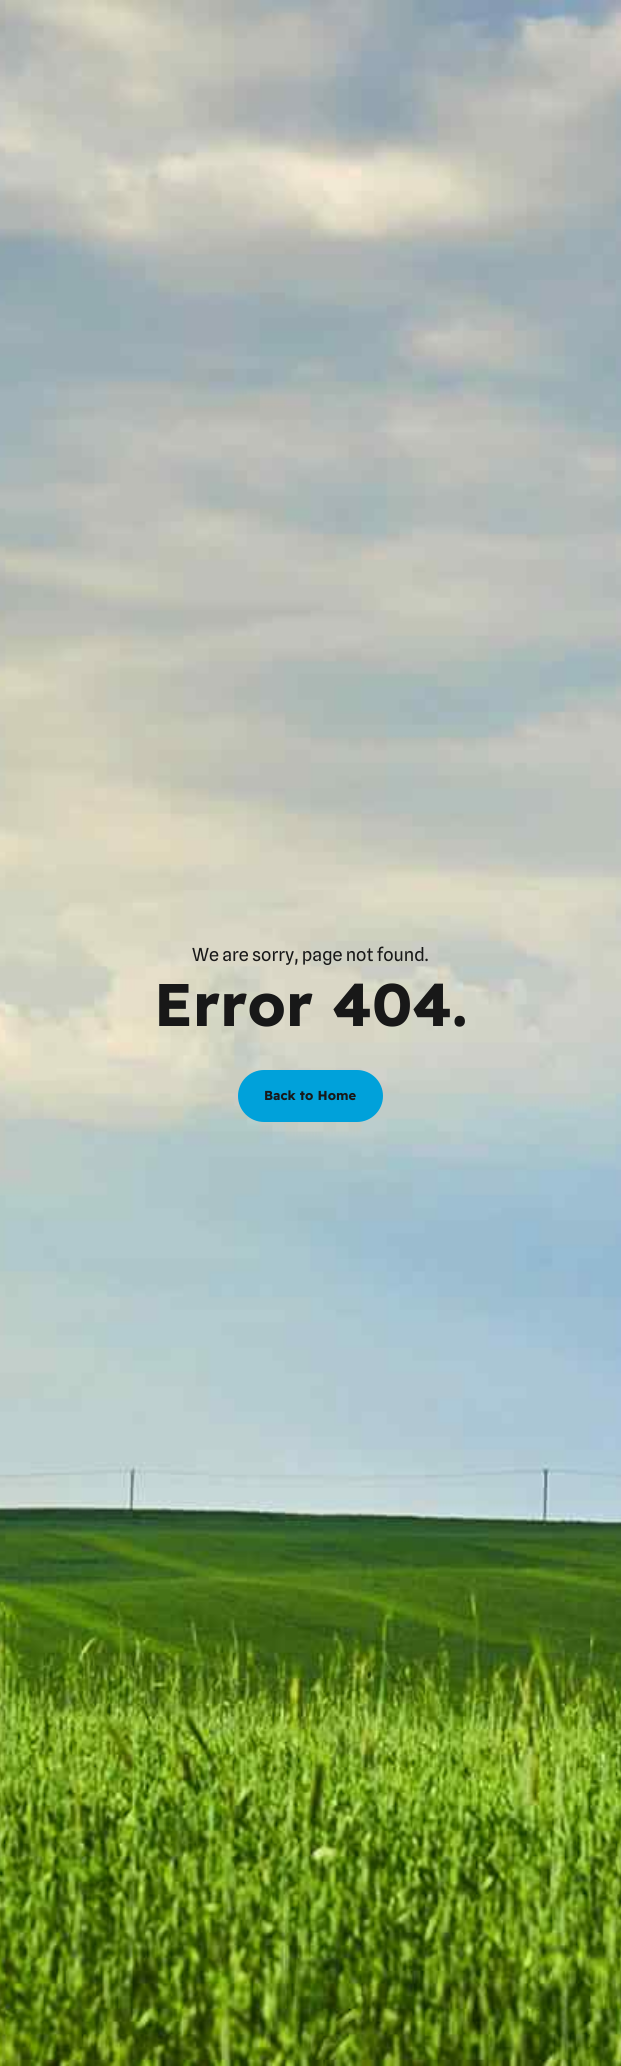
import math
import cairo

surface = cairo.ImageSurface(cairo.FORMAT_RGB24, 621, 2066)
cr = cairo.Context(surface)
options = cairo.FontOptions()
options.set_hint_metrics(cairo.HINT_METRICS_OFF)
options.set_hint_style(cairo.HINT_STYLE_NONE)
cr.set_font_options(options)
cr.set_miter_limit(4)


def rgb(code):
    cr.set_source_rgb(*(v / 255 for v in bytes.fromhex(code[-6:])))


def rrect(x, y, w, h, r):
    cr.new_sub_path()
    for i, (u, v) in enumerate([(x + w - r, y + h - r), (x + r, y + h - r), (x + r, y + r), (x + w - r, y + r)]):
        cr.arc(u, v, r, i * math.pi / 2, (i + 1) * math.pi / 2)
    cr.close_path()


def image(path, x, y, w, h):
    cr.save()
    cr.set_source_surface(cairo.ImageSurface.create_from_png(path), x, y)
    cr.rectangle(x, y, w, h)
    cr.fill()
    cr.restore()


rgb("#ffffff")
cr.paint()
image("img/1.png", 0, 0, 621, 2066)
rgb("#00a1da")
rrect(238, 1070, 145, 52, 26)
cr.fill()
cr.select_font_face("Spline Sans")
cr.set_font_size(18)
rgb("#181818")
cr.move_to(192, 961)
cr.show_text("We are sorry, page not found.")
cr.select_font_face("Readex Pro", cairo.FONT_SLANT_NORMAL, cairo.FONT_WEIGHT_BOLD)
cr.set_font_size(60)
cr.move_to(154, 1026)
cr.show_text("Error 404.")
cr.set_font_size(13)
cr.move_to(264, 1100)
cr.show_text("Back to Home")
surface.write_to_png("page.png")
